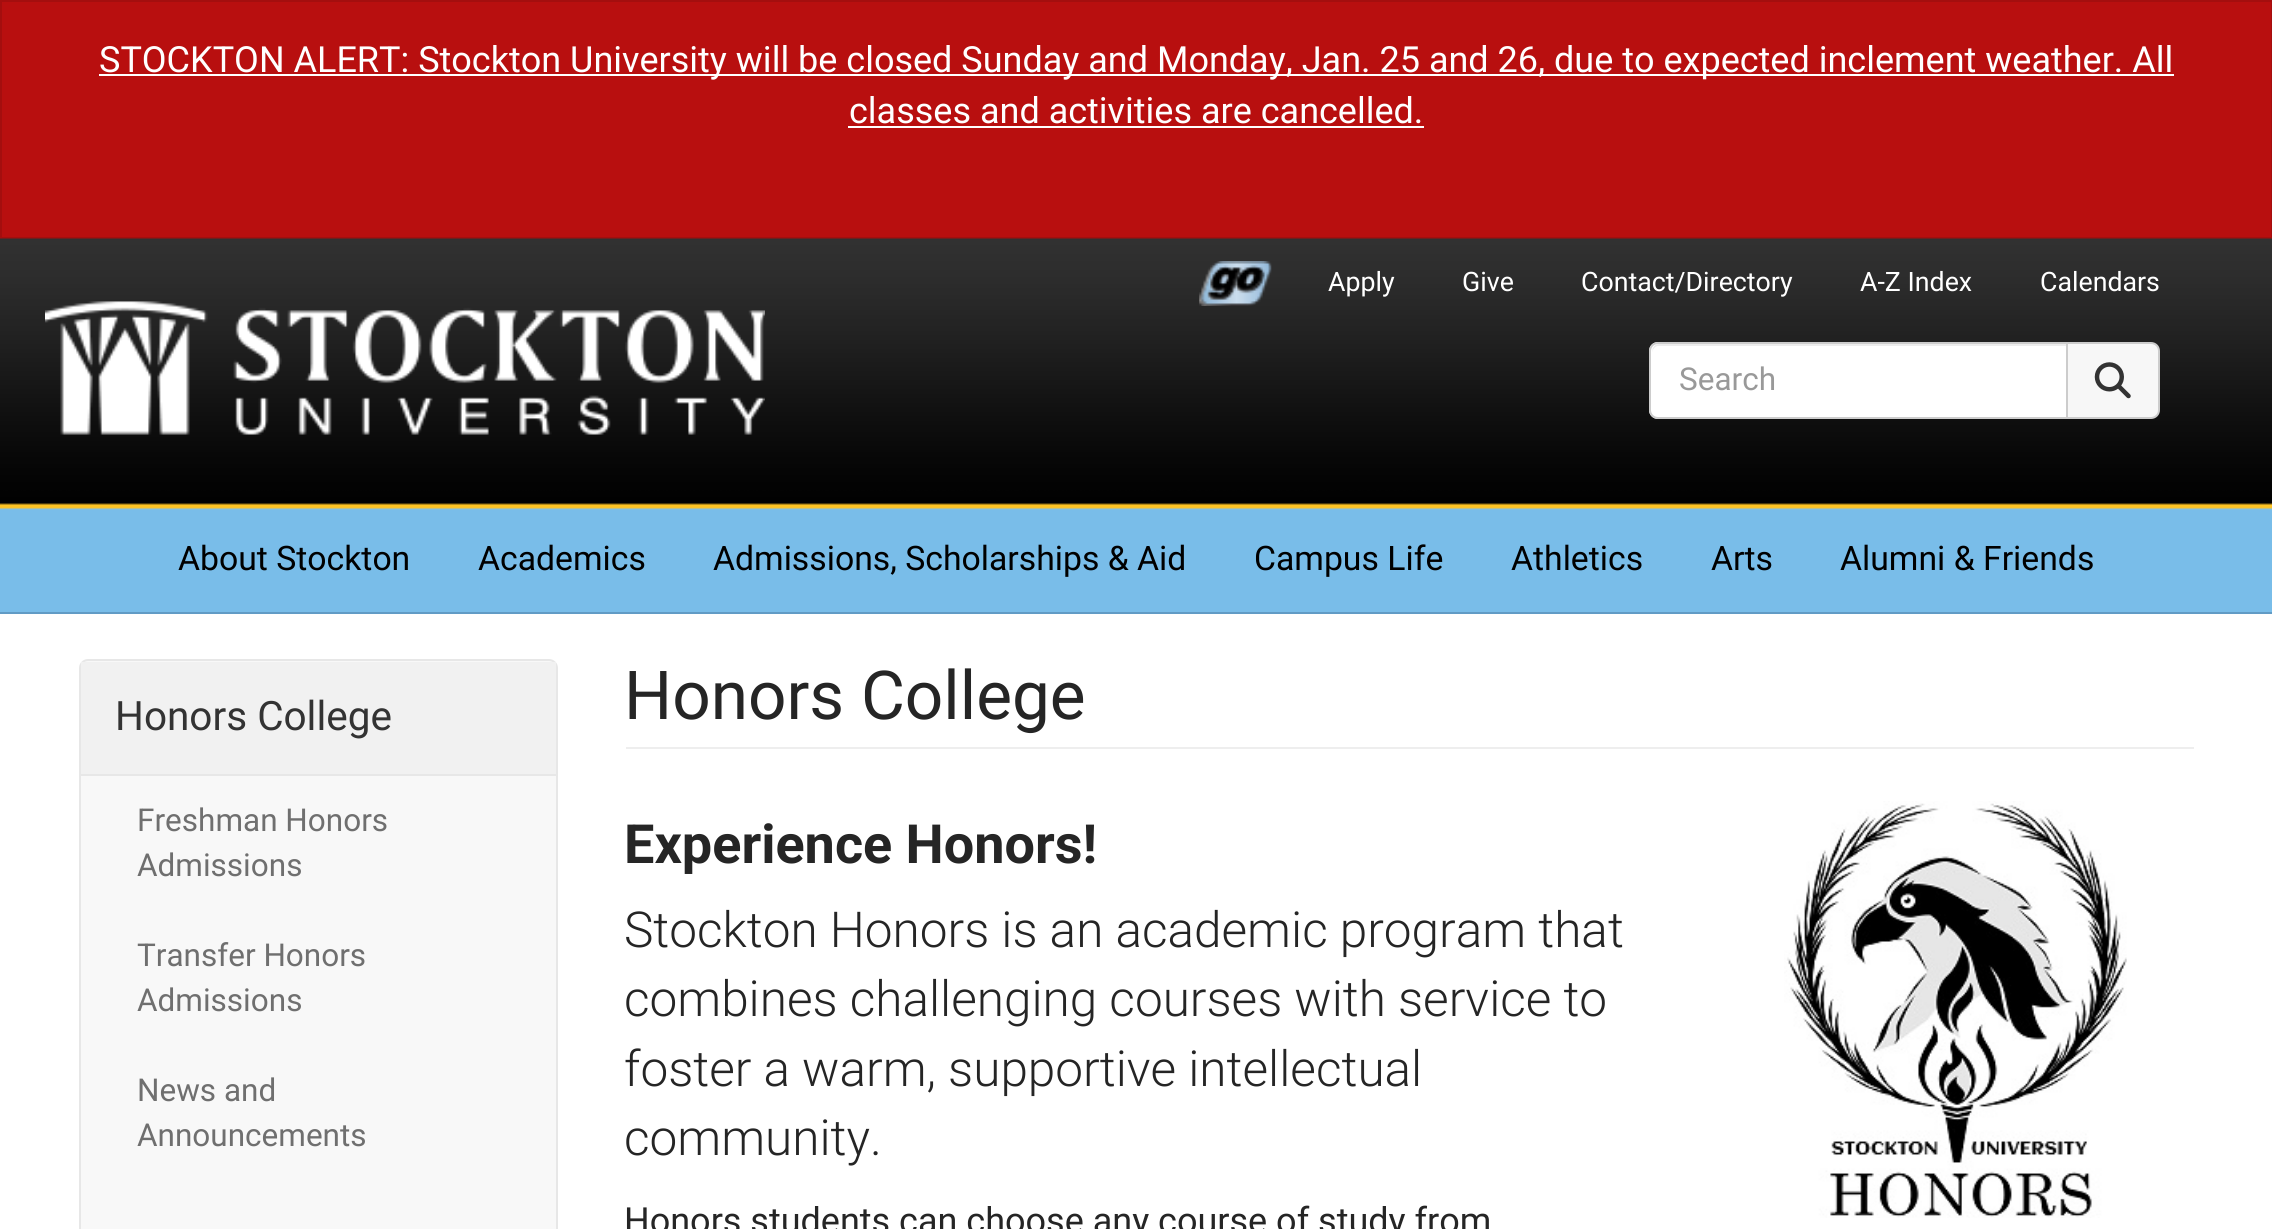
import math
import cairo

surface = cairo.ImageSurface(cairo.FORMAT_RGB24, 2272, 1229)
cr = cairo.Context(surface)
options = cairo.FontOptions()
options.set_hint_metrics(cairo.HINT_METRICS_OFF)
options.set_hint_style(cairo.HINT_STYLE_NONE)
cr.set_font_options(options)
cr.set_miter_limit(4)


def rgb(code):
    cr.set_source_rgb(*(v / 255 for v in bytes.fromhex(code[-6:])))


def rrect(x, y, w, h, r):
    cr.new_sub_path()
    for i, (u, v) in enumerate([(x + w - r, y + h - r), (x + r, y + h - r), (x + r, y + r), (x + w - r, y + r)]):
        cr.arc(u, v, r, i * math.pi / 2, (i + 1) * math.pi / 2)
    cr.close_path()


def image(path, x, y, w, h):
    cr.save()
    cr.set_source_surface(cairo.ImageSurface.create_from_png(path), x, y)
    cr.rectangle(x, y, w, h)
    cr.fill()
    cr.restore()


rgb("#b80f0f")
cr.paint()
cr.rectangle(1, 1, 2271, 237)
rgb("#a40e0e")
cr.stroke()
for x, y, w, h, color in [
    (99, 74, 2075, 2, "#ffffff"),
    (848, 126, 576, 2, "#ffffff"),
    (0, 510, 2272, 102, "#79bde9"),
]:
    rgb(color)
    cr.rectangle(x, y, w, h)
    cr.fill()
image("img/1.png", 0, 238, 2272, 272)
rgb("#619bc5")
cr.rectangle(0, 612, 2272, 2)
cr.fill()
image("img/2.png", 1199, 261, 73, 45)
image("img/3.png", 45, 301, 720, 134)
rgb("#ffffff")
cr.new_path()
cr.move_to(1658, 342)
cr.line_to(2068, 342)
cr.line_to(2068, 419)
cr.line_to(1658, 419)
cr.curve_to(1653, 419, 1649, 415, 1649, 410)
cr.line_to(1649, 351)
cr.curve_to(1649, 346, 1653, 342, 1658, 342)
cr.close_path()
cr.fill()
rgb("#ececec")
cr.new_path()
cr.move_to(1658, 346)
cr.line_to(2066, 346)
cr.line_to(2066, 344)
cr.line_to(1659, 344)
cr.curve_to(1654, 344, 1652, 349, 1652, 353)
cr.curve_to(1652, 350, 1655, 346, 1658, 346)
cr.close_path()
cr.fill()
cr.new_path()
cr.move_to(1658, 343)
cr.line_to(2067, 343)
cr.line_to(2067, 418)
cr.line_to(1658, 418)
cr.curve_to(1653.5, 418, 1650, 414.5, 1650, 410)
cr.line_to(1650, 351)
cr.curve_to(1650, 346.5, 1653.5, 343, 1658, 343)
cr.close_path()
rgb("#cccccc")
cr.stroke()
rgb("#f7f7f7")
cr.new_path()
cr.move_to(2067, 343)
cr.line_to(2151, 343)
cr.curve_to(2155.5, 343, 2159, 346.5, 2159, 351)
cr.line_to(2159, 410)
cr.curve_to(2159, 414.5, 2155.5, 418, 2151, 418)
cr.line_to(2067, 418)
cr.close_path()
cr.fill_preserve()
rgb("#cccccc")
cr.stroke()
image("img/4.png", 2094, 362, 37, 37)
rgb("#ffffff")
cr.rectangle(0, 614, 2272, 615)
cr.fill()
rgb("#f8f8f8")
rrect(80, 660, 477, 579, 8)
cr.fill_preserve()
rgb("#e7e7e7")
cr.stroke()
for x, y, w, h, color in [
    (81, 662, 475, 112, "#f1f1f1"),
    (81, 774, 475, 2, "#e7e7e7"),
    (626, 747, 1568, 2, "#eeeeee"),
]:
    rgb(color)
    cr.rectangle(x, y, w, h)
    cr.fill()
image("img/5.png", 1784, 801, 343, 417)
cr.select_font_face("Roboto")
cr.set_font_size(36)
rgb("#ffffff")
cr.move_to(99, 72)
cr.show_text("STOCKTON ALERT: Stockton University will be closed Sunday and Monday, Jan. 25 and 26, due to expected inclement weather. All")
cr.move_to(849, 123)
cr.show_text("classes and activities are cancelled.")
cr.set_font_size(26.75)
for x, y, s in [
    (1328, 291, "Apply"),
    (1462, 291, "Give"),
    (1581, 291, "Contact/Directory"),
    (1860, 291, "A-Z Index"),
    (2040, 291, "Calendars"),
]:
    cr.move_to(x, y)
    cr.show_text(s)
cr.set_font_size(31.5)
rgb("#999999")
cr.move_to(1679, 390)
cr.show_text("Search")
cr.set_font_size(33.75)
rgb("#000000")
for x, y, s in [
    (178, 570, "About Stockton"),
    (478, 570, "Academics"),
    (713, 570, "Admissions, Scholarships & Aid"),
    (1254, 570, "Campus Life"),
    (1511, 570, "Athletics"),
    (1711, 570, "Arts"),
    (1840, 570, "Alumni & Friends"),
]:
    cr.move_to(x, y)
    cr.show_text(s)
cr.set_font_size(40.5)
rgb("#333333")
cr.move_to(115, 730)
cr.show_text("Honors College")
cr.set_font_size(31.5)
rgb("#6f6f6f")
for x, y, s in [
    (137, 831, "Freshman Honors"),
    (137, 876, "Admissions"),
    (137, 966, "Transfer Honors"),
    (137, 1011, "Admissions"),
    (137, 1101, "News and"),
    (137, 1146, "Announcements"),
]:
    cr.move_to(x, y)
    cr.show_text(s)
cr.set_font_size(67.5)
rgb("#252525")
cr.move_to(624, 719)
cr.show_text("Honors College")
cr.select_font_face("Roboto", cairo.FONT_SLANT_NORMAL, cairo.FONT_WEIGHT_BOLD)
cr.set_font_size(54)
cr.move_to(624, 863)
cr.show_text("Experience Honors!")
cr.select_font_face("Roboto Light")
cr.set_font_size(49.5)
for x, y, s in [
    (624, 947, "Stockton Honors is an academic program that"),
    (624, 1016, "combines challenging courses with service to"),
    (624, 1086, "foster a warm, supportive intellectual"),
    (624, 1155, "community."),
]:
    cr.move_to(x, y)
    cr.show_text(s)
cr.select_font_face("Roboto")
cr.set_font_size(36)
cr.move_to(624, 1233)
cr.show_text("Honors students can choose any course of study from")
surface.write_to_png("page.png")
